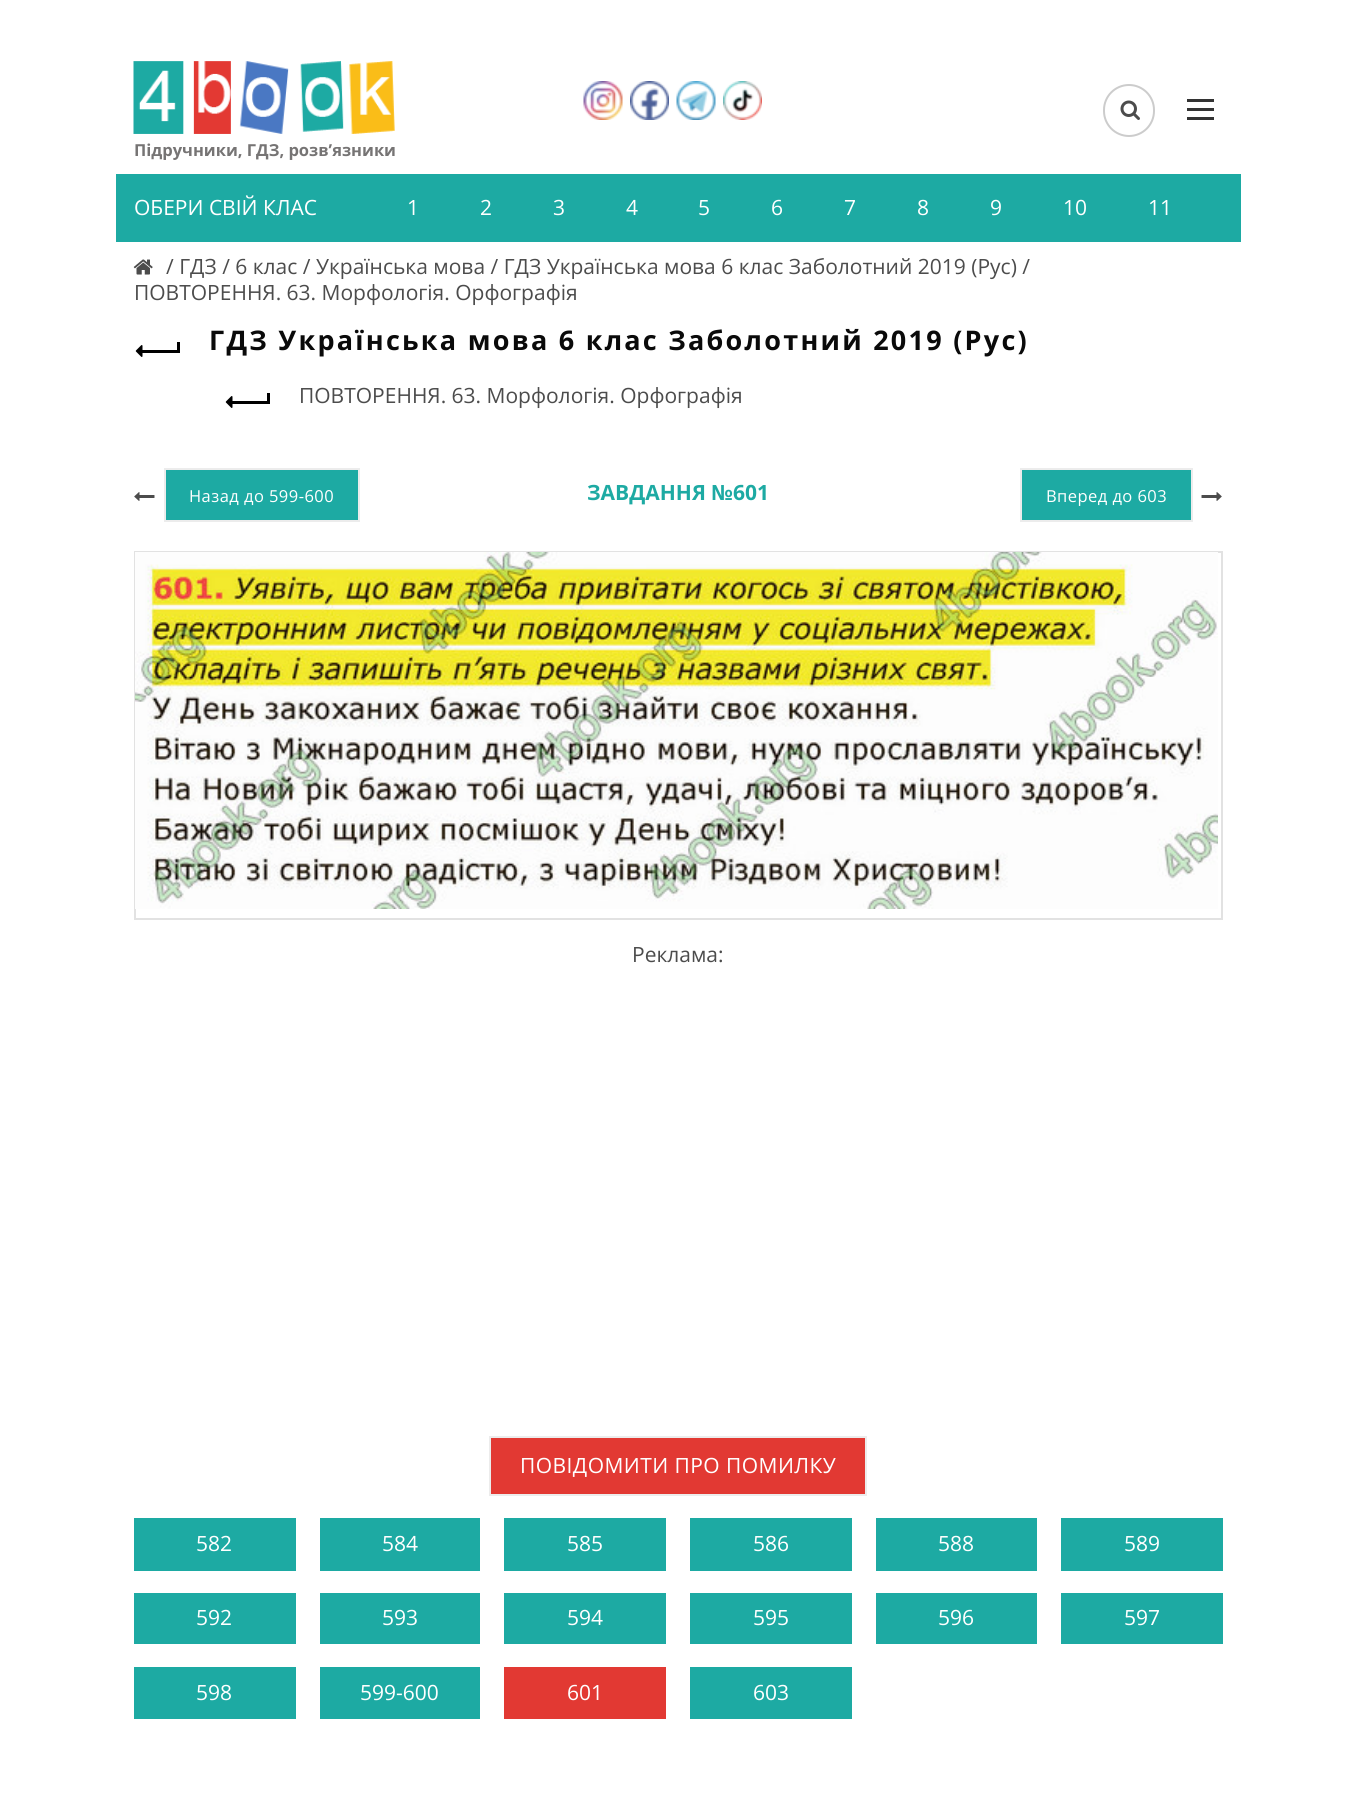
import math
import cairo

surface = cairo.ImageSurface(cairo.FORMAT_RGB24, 1356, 1809)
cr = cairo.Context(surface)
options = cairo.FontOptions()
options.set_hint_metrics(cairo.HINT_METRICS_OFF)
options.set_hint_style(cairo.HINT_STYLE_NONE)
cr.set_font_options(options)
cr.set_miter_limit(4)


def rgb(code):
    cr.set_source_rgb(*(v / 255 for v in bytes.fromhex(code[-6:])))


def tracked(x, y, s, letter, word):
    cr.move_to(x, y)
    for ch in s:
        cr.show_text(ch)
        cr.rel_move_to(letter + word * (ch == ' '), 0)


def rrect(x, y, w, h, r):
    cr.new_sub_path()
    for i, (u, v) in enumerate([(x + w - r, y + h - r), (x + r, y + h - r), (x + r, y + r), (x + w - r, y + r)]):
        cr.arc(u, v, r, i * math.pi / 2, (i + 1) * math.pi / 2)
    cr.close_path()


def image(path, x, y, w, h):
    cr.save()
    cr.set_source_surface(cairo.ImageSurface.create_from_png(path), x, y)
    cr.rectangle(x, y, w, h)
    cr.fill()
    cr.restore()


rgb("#ffffff")
cr.paint()
image("img/1.png", 583, 81, 40, 39)
image("img/2.png", 630, 81, 39, 39)
image("img/3.png", 676, 81, 40, 39)
image("img/4.png", 723, 81, 39, 39)
image("img/5.png", 1120, 100, 20, 20)
rrect(1104, 85, 50, 51, 25)
rgb("#cccccc")
cr.stroke()
for x, y, w, h, color in [
    (1187, 108, 27, 3, "#333333"),
    (1187, 99, 27, 3, "#333333"),
    (1187, 117, 27, 3, "#333333"),
]:
    rgb(color)
    cr.rectangle(x, y, w, h)
    cr.fill()
image("img/6.png", 133, 61, 262, 73)
rgb("#1daaa3")
cr.rectangle(116, 174, 1125, 68)
cr.fill()
image("img/7.png", 133, 259, 20, 16)
rgb("#000000")
cr.rectangle(141, 350, 38, 3)
cr.fill()
image("img/8.png", 135, 345, 8, 12)
cr.rectangle(177, 342, 3, 11)
cr.fill()
cr.rectangle(231, 401, 38, 3)
cr.fill()
image("img/8.png", 225, 396, 8, 12)
cr.rectangle(267, 393, 3, 11)
cr.fill()
image("img/9.png", 134, 492, 21, 9)
rgb("#1daaa3")
cr.rectangle(165, 469, 194, 52)
cr.fill_preserve()
rgb("#ececec")
cr.stroke()
rgb("#1daaa3")
cr.rectangle(1021, 469, 171, 52)
cr.fill_preserve()
rgb("#ececec")
cr.stroke()
image("img/10.png", 1201, 492, 21, 9)
cr.rectangle(135, 552, 1087, 367)
rgb("#e2e2e2")
cr.stroke()
image("img/11.png", 135, 552, 1083, 357)
rgb("#e23933")
cr.rectangle(490, 1437, 376, 58)
cr.fill_preserve()
rgb("#ececec")
cr.stroke()
for x, y, w, h, color in [
    (134, 1518, 162, 53, "#1daaa3"),
    (320, 1518, 160, 53, "#1daaa3"),
    (504, 1518, 162, 53, "#1daaa3"),
    (690, 1518, 162, 53, "#1daaa3"),
    (876, 1518, 161, 53, "#1daaa3"),
    (1061, 1518, 162, 53, "#1daaa3"),
    (134, 1593, 162, 51, "#1daaa3"),
    (320, 1593, 160, 51, "#1daaa3"),
    (504, 1593, 162, 51, "#1daaa3"),
    (690, 1593, 162, 51, "#1daaa3"),
    (876, 1593, 161, 51, "#1daaa3"),
    (1061, 1593, 162, 51, "#1daaa3"),
    (134, 1667, 162, 52, "#1daaa3"),
    (320, 1667, 160, 52, "#1daaa3"),
    (504, 1667, 162, 52, "#e23933"),
    (690, 1667, 162, 52, "#1daaa3"),
]:
    rgb(color)
    cr.rectangle(x, y, w, h)
    cr.fill()
cr.select_font_face("Open Sans", cairo.FONT_SLANT_NORMAL, cairo.FONT_WEIGHT_BOLD)
cr.set_font_size(16.5)
rgb("#767474")
cr.move_to(134, 156)
cr.show_text("Підручники, ГДЗ, розв’язники")
cr.select_font_face("Open Sans")
cr.set_font_size(21)
rgb("#ffffff")
for x, y, s in [
    (134, 215, "ОБЕРИ СВІЙ КЛАС"),
    (407, 215, "1"),
    (480, 215, "2"),
    (553, 215, "3"),
    (626, 215, "4"),
    (698, 215, "5"),
    (771, 215, "6"),
    (844, 215, "7"),
    (917, 215, "8"),
    (990, 215, "9"),
    (1063, 215, "10"),
    (1148, 215, "11"),
]:
    cr.move_to(x, y)
    cr.show_text(s)
rgb("#4c4c4c")
cr.move_to(166, 274)
cr.show_text("/ ГДЗ / 6 клас / Українська мова / ГДЗ Українська мова 6 клас Заболотний 2019 (Рус) /")
cr.move_to(134, 300)
cr.show_text("ПОВТОРЕННЯ. 63. Морфологія. Орфографія")
cr.select_font_face("Open Sans", cairo.FONT_SLANT_NORMAL, cairo.FONT_WEIGHT_BOLD)
cr.set_font_size(27)
rgb("#0a0a0a")
tracked(209, 350, "ГДЗ Українська мова 6 клас Заболотний 2019 (Рус)", 2.25, 0)
cr.select_font_face("Open Sans")
cr.set_font_size(21)
rgb("#4c4c4c")
cr.move_to(299, 403)
cr.show_text("ПОВТОРЕННЯ. 63. Морфологія. Орфографія")
cr.set_font_size(16.5)
rgb("#ffffff")
tracked(189, 502, "Назад до 599-600", 0.45, 0)
cr.select_font_face("Open Sans", cairo.FONT_SLANT_NORMAL, cairo.FONT_WEIGHT_BOLD)
cr.set_font_size(21)
rgb("#1daaa3")
cr.move_to(587, 500)
cr.show_text("ЗАВДАННЯ №601")
cr.select_font_face("Open Sans")
cr.set_font_size(16.5)
rgb("#ffffff")
tracked(1046, 502, "Вперед до 603", 0.45, 0)
cr.set_font_size(21)
rgb("#4c4c4c")
cr.move_to(632, 962)
cr.show_text("Реклама:")
rgb("#ffffff")
tracked(520, 1473, "ПОВІДОМИТИ ПРО ПОМИЛКУ", 0.45, 0)
for x, y, s in [
    (196, 1551, "582"),
    (382, 1551, "584"),
    (567, 1551, "585"),
    (753, 1551, "586"),
    (938, 1551, "588"),
    (1124, 1551, "589"),
    (196, 1625, "592"),
    (382, 1625, "593"),
    (567, 1625, "594"),
    (753, 1625, "595"),
    (938, 1625, "596"),
    (1124, 1625, "597"),
    (196, 1700, "598"),
    (360, 1700, "599-600"),
    (567, 1700, "601"),
    (753, 1700, "603"),
]:
    cr.move_to(x, y)
    cr.show_text(s)
surface.write_to_png("page.png")
